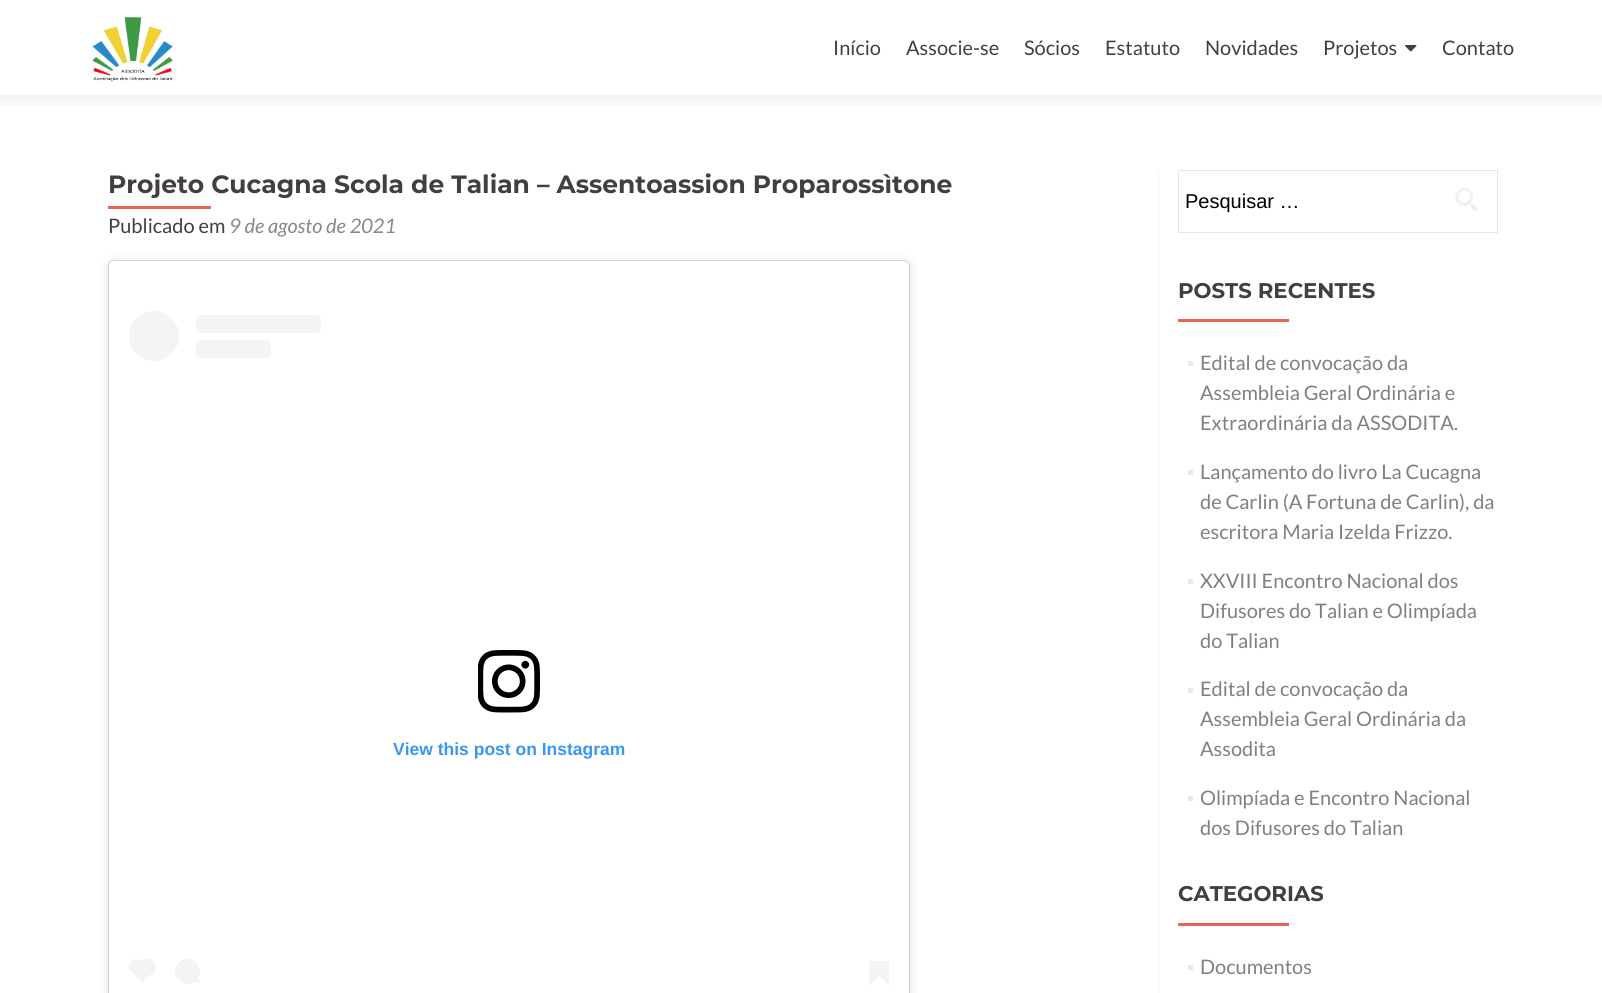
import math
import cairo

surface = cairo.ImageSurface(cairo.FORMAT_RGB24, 1602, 993)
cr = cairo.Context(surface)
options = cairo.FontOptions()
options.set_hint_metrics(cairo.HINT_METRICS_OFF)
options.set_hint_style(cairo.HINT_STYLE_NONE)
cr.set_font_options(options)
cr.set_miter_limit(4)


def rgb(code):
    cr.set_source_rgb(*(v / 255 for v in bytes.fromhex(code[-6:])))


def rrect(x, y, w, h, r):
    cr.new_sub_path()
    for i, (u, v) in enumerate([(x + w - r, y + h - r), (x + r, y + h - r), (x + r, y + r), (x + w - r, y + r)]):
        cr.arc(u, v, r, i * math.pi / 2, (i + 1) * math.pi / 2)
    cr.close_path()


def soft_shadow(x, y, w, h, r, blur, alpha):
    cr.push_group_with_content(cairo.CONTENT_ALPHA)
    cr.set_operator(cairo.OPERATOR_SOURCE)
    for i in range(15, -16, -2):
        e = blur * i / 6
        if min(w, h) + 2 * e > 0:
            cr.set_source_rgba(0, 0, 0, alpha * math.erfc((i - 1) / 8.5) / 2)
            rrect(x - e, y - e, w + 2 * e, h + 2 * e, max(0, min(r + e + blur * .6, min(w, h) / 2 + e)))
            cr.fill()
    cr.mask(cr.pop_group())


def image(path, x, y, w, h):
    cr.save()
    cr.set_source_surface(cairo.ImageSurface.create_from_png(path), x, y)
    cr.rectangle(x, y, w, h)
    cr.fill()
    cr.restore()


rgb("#ffffff")
cr.paint()
cr.save()
cr.rectangle(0, 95, 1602, 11)
cr.clip()
rgb("#323232")
soft_shadow(0, 6, 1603, 95, 0, 7, 0.08)
cr.restore()
image("img/1.png", 92, 17, 81, 65)
image("img/2.png", 1405, 45, 12, 7)
rgb("#e96656")
cr.rectangle(108, 206, 103, 3)
cr.fill()
rgb("#000000")
soft_shadow(109, 263, 800, 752, 4, 6, 0.15)
soft_shadow(109, 261, 800, 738, 4, 0.5, 0.5)
rgb("#ffffff")
rrect(109, 261, 800, 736, 4)
cr.fill()
rgb("#f4f4f4")
cr.arc(154, 336, 25, 0, 2 * math.pi)
cr.fill()
rrect(196, 315, 125, 18, 5)
cr.fill()
rrect(196, 340, 75, 18, 5)
cr.fill()
image("img/3.png", 478, 650, 62, 63)
cr.arc(137, 967, 8, 0, 2 * math.pi)
cr.fill()
cr.new_path()
cr.move_to(131.5, 971.5)
cr.line_to(142.5, 960.5)
cr.line_to(153.5, 971.5)
cr.line_to(142.5, 983)
cr.close_path()
cr.fill()
cr.arc(148, 967, 8, 0, 2 * math.pi)
cr.fill()
cr.arc(187.5, 971.5, 12.5, 0, 2 * math.pi)
cr.fill()
cr.new_path()
cr.move_to(193.5, 981.5)
cr.line_to(196, 977)
cr.line_to(201.5, 983)
cr.close_path()
cr.fill()
cr.rectangle(869, 961, 20, 15)
cr.fill()
cr.new_path()
cr.move_to(869, 976)
cr.line_to(879, 976)
cr.line_to(869, 986)
cr.close_path()
cr.fill()
cr.new_path()
cr.move_to(879, 976)
cr.line_to(889, 976)
cr.line_to(889, 986)
cr.close_path()
cr.fill()
rgb("#f2f2f2")
cr.rectangle(1158, 170, 1, 823)
cr.fill()
cr.rectangle(1178.5, 170.5, 319, 62)
rgb("#e6e6e6")
cr.set_line_width(1)
cr.stroke()
image("img/4.png", 1455, 187, 23, 25)
for x, y, w, h, color in [
    (1178, 319, 111, 3, "#e96656"),
    (1188, 361, 5, 5, "#e9e9e9"),
    (1188, 470, 5, 5, "#e9e9e9"),
    (1188, 579, 5, 5, "#e9e9e9"),
    (1188, 688, 5, 5, "#e9e9e9"),
    (1188, 796, 5, 5, "#e9e9e9"),
    (1178, 923, 111, 3, "#e96656"),
    (1188, 965, 5, 5, "#e9e9e9"),
]:
    rgb(color)
    cr.rectangle(x, y, w, h)
    cr.fill()
cr.select_font_face("Lato")
cr.set_font_size(20)
rgb("#404040")
for x, y, s in [
    (833, 55, "Início"),
    (906, 55, "Associe-se"),
    (1024, 55, "Sócios"),
    (1105, 55, "Estatuto"),
    (1205, 55, "Novidades"),
    (1323, 55, "Projetos"),
    (1442, 55, "Contato"),
]:
    cr.move_to(x, y)
    cr.show_text(s)
cr.select_font_face("Montserrat", cairo.FONT_SLANT_NORMAL, cairo.FONT_WEIGHT_BOLD)
cr.set_font_size(25)
cr.move_to(108, 193)
cr.show_text("Projeto Cucagna Scola de Talian – Assentoassion Proparossìtone")
cr.select_font_face("Lato")
cr.set_font_size(20)
cr.move_to(108, 233)
cr.show_text("Publicado em")
cr.select_font_face("Lato", cairo.FONT_SLANT_ITALIC)
rgb("#888888")
cr.move_to(229, 233)
cr.show_text("9 de agosto de 2021")
cr.select_font_face("Liberation Sans", cairo.FONT_SLANT_NORMAL, cairo.FONT_WEIGHT_BOLD)
cr.set_font_size(17.5)
rgb("#3897f0")
cr.move_to(393, 755)
cr.show_text("View this post on Instagram")
cr.select_font_face("Liberation Sans")
cr.set_font_size(20)
rgb("#000000")
cr.move_to(1185, 208)
cr.show_text("Pesquisar …")
cr.select_font_face("Montserrat", cairo.FONT_SLANT_NORMAL, cairo.FONT_WEIGHT_BOLD)
cr.set_font_size(21.25)
rgb("#404040")
cr.move_to(1178, 298)
cr.show_text("POSTS RECENTES")
cr.select_font_face("Lato")
cr.set_font_size(20)
rgb("#808080")
for x, y, s in [
    (1200, 370, "Edital de convocação da"),
    (1200, 400, "Assembleia Geral Ordinária e"),
    (1200, 430, "Extraordinária da ASSODITA."),
    (1200, 479, "Lançamento do livro La Cucagna"),
    (1200, 509, "de Carlin (A Fortuna de Carlin), da"),
    (1200, 539, "escritora Maria Izelda Frizzo."),
    (1200, 588, "XXVIII Encontro Nacional dos"),
    (1200, 618, "Difusores do Talian e Olimpíada"),
    (1200, 648, "do Talian"),
    (1200, 696, "Edital de convocação da"),
    (1200, 726, "Assembleia Geral Ordinária da"),
    (1200, 756, "Assodita"),
    (1200, 805, "Olimpíada e Encontro Nacional"),
    (1200, 835, "dos Difusores do Talian"),
]:
    cr.move_to(x, y)
    cr.show_text(s)
cr.select_font_face("Montserrat", cairo.FONT_SLANT_NORMAL, cairo.FONT_WEIGHT_BOLD)
cr.set_font_size(21.25)
rgb("#404040")
cr.move_to(1178, 901)
cr.show_text("CATEGORIAS")
cr.select_font_face("Lato")
cr.set_font_size(20)
rgb("#808080")
cr.move_to(1200, 974)
cr.show_text("Documentos")
surface.write_to_png("page.png")
